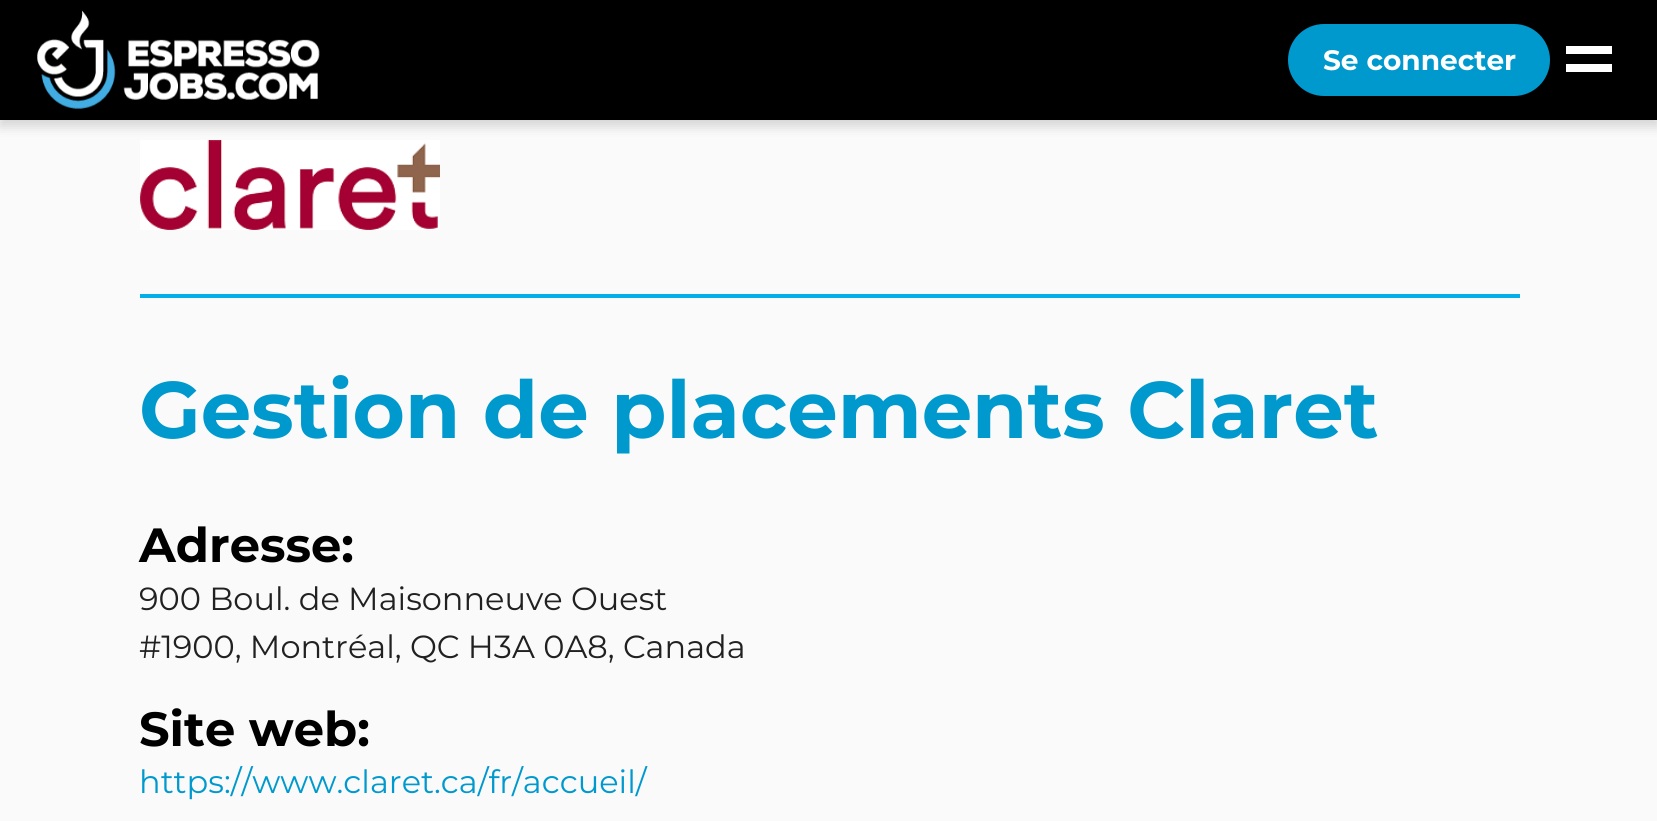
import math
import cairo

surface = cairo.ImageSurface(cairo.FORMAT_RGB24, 1657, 821)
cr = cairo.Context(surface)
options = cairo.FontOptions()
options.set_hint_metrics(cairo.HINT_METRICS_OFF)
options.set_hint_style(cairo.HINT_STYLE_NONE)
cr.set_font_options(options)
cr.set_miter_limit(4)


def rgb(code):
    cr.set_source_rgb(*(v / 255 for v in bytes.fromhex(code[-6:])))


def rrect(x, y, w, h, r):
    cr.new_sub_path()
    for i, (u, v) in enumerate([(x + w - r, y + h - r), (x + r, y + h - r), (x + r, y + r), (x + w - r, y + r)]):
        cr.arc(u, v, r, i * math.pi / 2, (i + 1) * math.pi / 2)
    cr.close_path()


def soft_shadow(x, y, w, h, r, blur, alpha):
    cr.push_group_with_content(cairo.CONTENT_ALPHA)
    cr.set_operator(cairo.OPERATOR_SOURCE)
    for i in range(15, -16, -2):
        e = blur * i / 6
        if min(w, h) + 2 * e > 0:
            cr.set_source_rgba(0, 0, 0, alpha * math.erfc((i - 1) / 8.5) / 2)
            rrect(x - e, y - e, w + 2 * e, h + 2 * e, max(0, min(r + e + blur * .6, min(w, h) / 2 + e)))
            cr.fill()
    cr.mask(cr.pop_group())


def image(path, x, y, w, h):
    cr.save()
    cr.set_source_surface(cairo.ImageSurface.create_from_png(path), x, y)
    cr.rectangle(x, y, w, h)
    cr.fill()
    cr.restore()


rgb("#fafafa")
cr.paint()
image("img/2.png", 140, 140, 300, 90)
rgb("#000000")
soft_shadow(0, 6, 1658, 120, 0, 6, 0.16)
rgb("#000000")
cr.rectangle(0, 0, 1657, 120)
cr.fill()
image("img/1.png", 37, 10, 283, 99)
rgb("#0099ce")
rrect(1289, 25, 260, 70, 35)
cr.fill_preserve()
cr.stroke()
for x, y, w, h, color in [
    (1566, 46, 46, 8, "#ffffff"),
    (1566, 64, 46, 8, "#ffffff"),
    (140, 294, 1380, 4, "#04aee7"),
]:
    rgb(color)
    cr.rectangle(x, y, w, h)
    cr.fill()
cr.select_font_face("Montserrat", cairo.FONT_SLANT_NORMAL, cairo.FONT_WEIGHT_BOLD)
cr.set_font_size(28)
rgb("#ffffff")
cr.move_to(1323, 70)
cr.show_text("Se connecter")
cr.set_font_size(80)
rgb("#0099ce")
cr.move_to(139, 438)
cr.show_text("Gestion de placements Claret")
cr.set_font_size(48)
rgb("#000000")
cr.move_to(139, 562)
cr.show_text("Adresse:")
cr.select_font_face("Montserrat")
cr.set_font_size(32)
rgb("#212121")
cr.move_to(139, 610)
cr.show_text("900 Boul. de Maisonneuve Ouest")
cr.move_to(139, 658)
cr.show_text("#1900, Montréal, QC H3A 0A8, Canada")
cr.select_font_face("Montserrat", cairo.FONT_SLANT_NORMAL, cairo.FONT_WEIGHT_BOLD)
cr.set_font_size(48)
rgb("#000000")
cr.move_to(139, 746)
cr.show_text("Site web:")
cr.select_font_face("Montserrat")
cr.set_font_size(32)
rgb("#0099ce")
cr.move_to(139, 793)
cr.show_text("https://www.claret.ca/fr/accueil/")
surface.write_to_png("page.png")
